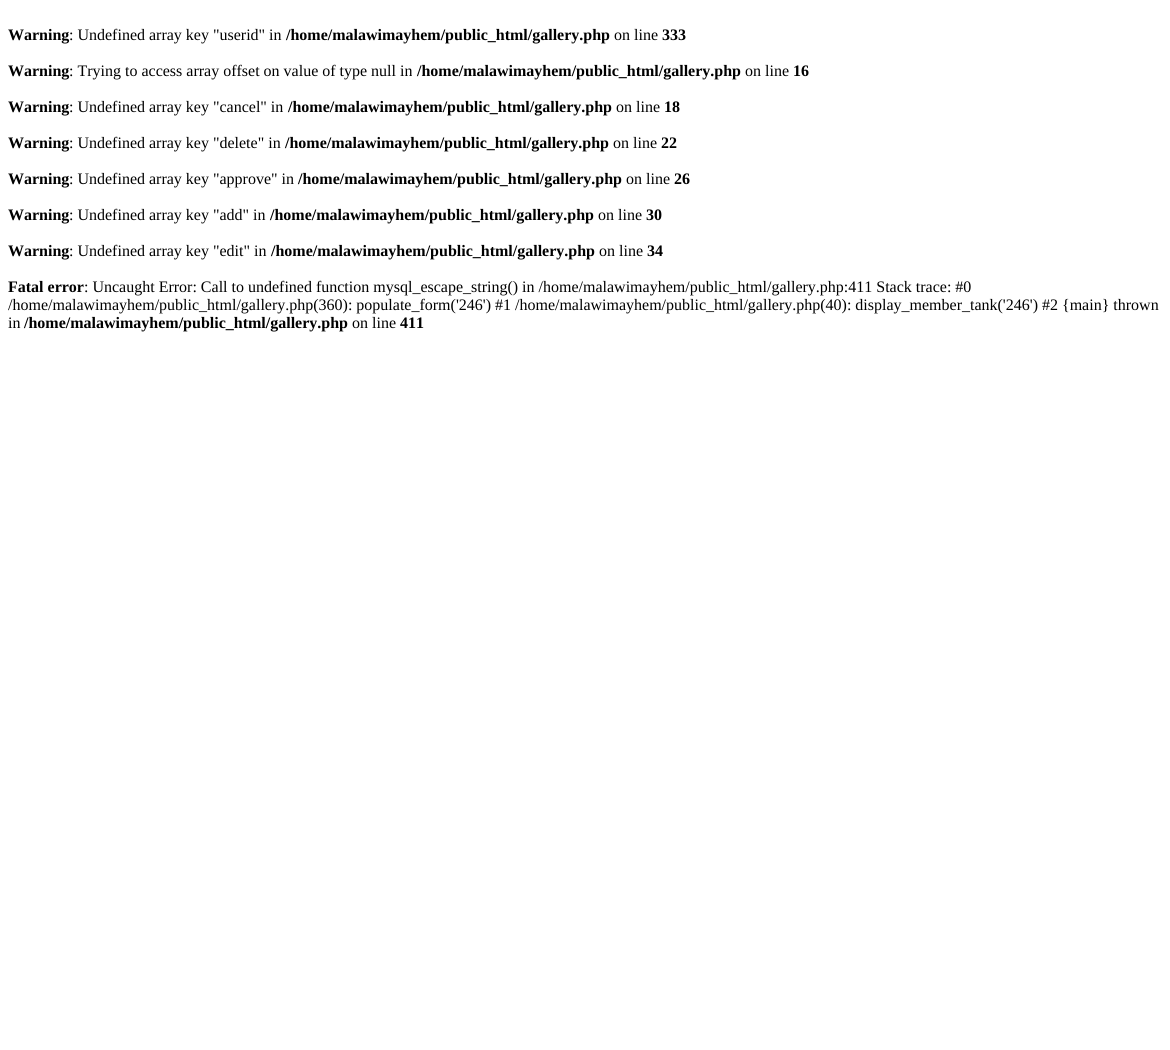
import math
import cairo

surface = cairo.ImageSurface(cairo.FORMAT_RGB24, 1170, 1050)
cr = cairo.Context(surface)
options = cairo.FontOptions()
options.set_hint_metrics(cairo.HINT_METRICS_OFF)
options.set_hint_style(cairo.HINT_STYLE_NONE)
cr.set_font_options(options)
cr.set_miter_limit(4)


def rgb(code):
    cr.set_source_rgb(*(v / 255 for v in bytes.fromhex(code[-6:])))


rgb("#ffffff")
cr.paint()
cr.select_font_face("Liberation Serif", cairo.FONT_SLANT_NORMAL, cairo.FONT_WEIGHT_BOLD)
cr.set_font_size(16)
rgb("#000000")
cr.move_to(8, 40)
cr.show_text("Warning")
cr.select_font_face("Liberation Serif")
cr.move_to(69, 40)
cr.show_text(": Undefined array key \"userid\" in")
cr.select_font_face("Liberation Serif", cairo.FONT_SLANT_NORMAL, cairo.FONT_WEIGHT_BOLD)
cr.move_to(286, 40)
cr.show_text("/home/malawimayhem/public_html/gallery.php")
cr.select_font_face("Liberation Serif")
cr.move_to(614, 40)
cr.show_text("on line")
cr.select_font_face("Liberation Serif", cairo.FONT_SLANT_NORMAL, cairo.FONT_WEIGHT_BOLD)
cr.move_to(662, 40)
cr.show_text("333")
cr.move_to(8, 76)
cr.show_text("Warning")
cr.select_font_face("Liberation Serif")
cr.move_to(69, 76)
cr.show_text(": Trying to access array offset on value of type null in")
cr.select_font_face("Liberation Serif", cairo.FONT_SLANT_NORMAL, cairo.FONT_WEIGHT_BOLD)
cr.move_to(417, 76)
cr.show_text("/home/malawimayhem/public_html/gallery.php")
cr.select_font_face("Liberation Serif")
cr.move_to(745, 76)
cr.show_text("on line")
cr.select_font_face("Liberation Serif", cairo.FONT_SLANT_NORMAL, cairo.FONT_WEIGHT_BOLD)
cr.move_to(793, 76)
cr.show_text("16")
cr.move_to(8, 112)
cr.show_text("Warning")
cr.select_font_face("Liberation Serif")
cr.move_to(69, 112)
cr.show_text(": Undefined array key \"cancel\" in")
cr.select_font_face("Liberation Serif", cairo.FONT_SLANT_NORMAL, cairo.FONT_WEIGHT_BOLD)
cr.move_to(288, 112)
cr.show_text("/home/malawimayhem/public_html/gallery.php")
cr.select_font_face("Liberation Serif")
cr.move_to(616, 112)
cr.show_text("on line")
cr.select_font_face("Liberation Serif", cairo.FONT_SLANT_NORMAL, cairo.FONT_WEIGHT_BOLD)
cr.move_to(664, 112)
cr.show_text("18")
cr.move_to(8, 148)
cr.show_text("Warning")
cr.select_font_face("Liberation Serif")
cr.move_to(69, 148)
cr.show_text(": Undefined array key \"delete\" in")
cr.select_font_face("Liberation Serif", cairo.FONT_SLANT_NORMAL, cairo.FONT_WEIGHT_BOLD)
cr.move_to(285, 148)
cr.show_text("/home/malawimayhem/public_html/gallery.php")
cr.select_font_face("Liberation Serif")
cr.move_to(613, 148)
cr.show_text("on line")
cr.select_font_face("Liberation Serif", cairo.FONT_SLANT_NORMAL, cairo.FONT_WEIGHT_BOLD)
cr.move_to(661, 148)
cr.show_text("22")
cr.move_to(8, 184)
cr.show_text("Warning")
cr.select_font_face("Liberation Serif")
cr.move_to(69, 184)
cr.show_text(": Undefined array key \"approve\" in")
cr.select_font_face("Liberation Serif", cairo.FONT_SLANT_NORMAL, cairo.FONT_WEIGHT_BOLD)
cr.move_to(298, 184)
cr.show_text("/home/malawimayhem/public_html/gallery.php")
cr.select_font_face("Liberation Serif")
cr.move_to(626, 184)
cr.show_text("on line")
cr.select_font_face("Liberation Serif", cairo.FONT_SLANT_NORMAL, cairo.FONT_WEIGHT_BOLD)
cr.move_to(674, 184)
cr.show_text("26")
cr.move_to(8, 220)
cr.show_text("Warning")
cr.select_font_face("Liberation Serif")
cr.move_to(69, 220)
cr.show_text(": Undefined array key \"add\" in")
cr.select_font_face("Liberation Serif", cairo.FONT_SLANT_NORMAL, cairo.FONT_WEIGHT_BOLD)
cr.move_to(270, 220)
cr.show_text("/home/malawimayhem/public_html/gallery.php")
cr.select_font_face("Liberation Serif")
cr.move_to(598, 220)
cr.show_text("on line")
cr.select_font_face("Liberation Serif", cairo.FONT_SLANT_NORMAL, cairo.FONT_WEIGHT_BOLD)
cr.move_to(646, 220)
cr.show_text("30")
cr.move_to(8, 256)
cr.show_text("Warning")
cr.select_font_face("Liberation Serif")
cr.move_to(69, 256)
cr.show_text(": Undefined array key \"edit\" in")
cr.select_font_face("Liberation Serif", cairo.FONT_SLANT_NORMAL, cairo.FONT_WEIGHT_BOLD)
cr.move_to(271, 256)
cr.show_text("/home/malawimayhem/public_html/gallery.php")
cr.select_font_face("Liberation Serif")
cr.move_to(599, 256)
cr.show_text("on line")
cr.select_font_face("Liberation Serif", cairo.FONT_SLANT_NORMAL, cairo.FONT_WEIGHT_BOLD)
cr.move_to(647, 256)
cr.show_text("34")
cr.move_to(8, 292)
cr.show_text("Fatal error")
cr.select_font_face("Liberation Serif")
for x, y, s in [
    (84, 292, ": Uncaught Error: Call to undefined function mysql_escape_string() in /home/malawimayhem/public_html/gallery.php:411 Stack trace: #0"),
    (8, 310, "/home/malawimayhem/public_html/gallery.php(360): populate_form('246') #1 /home/malawimayhem/public_html/gallery.php(40): display_member_tank('246') #2 {main} thrown"),
    (8, 328, "in"),
]:
    cr.move_to(x, y)
    cr.show_text(s)
cr.select_font_face("Liberation Serif", cairo.FONT_SLANT_NORMAL, cairo.FONT_WEIGHT_BOLD)
cr.move_to(24, 328)
cr.show_text("/home/malawimayhem/public_html/gallery.php")
cr.select_font_face("Liberation Serif")
cr.move_to(352, 328)
cr.show_text("on line")
cr.select_font_face("Liberation Serif", cairo.FONT_SLANT_NORMAL, cairo.FONT_WEIGHT_BOLD)
cr.move_to(400, 328)
cr.show_text("411")
surface.write_to_png("page.png")
